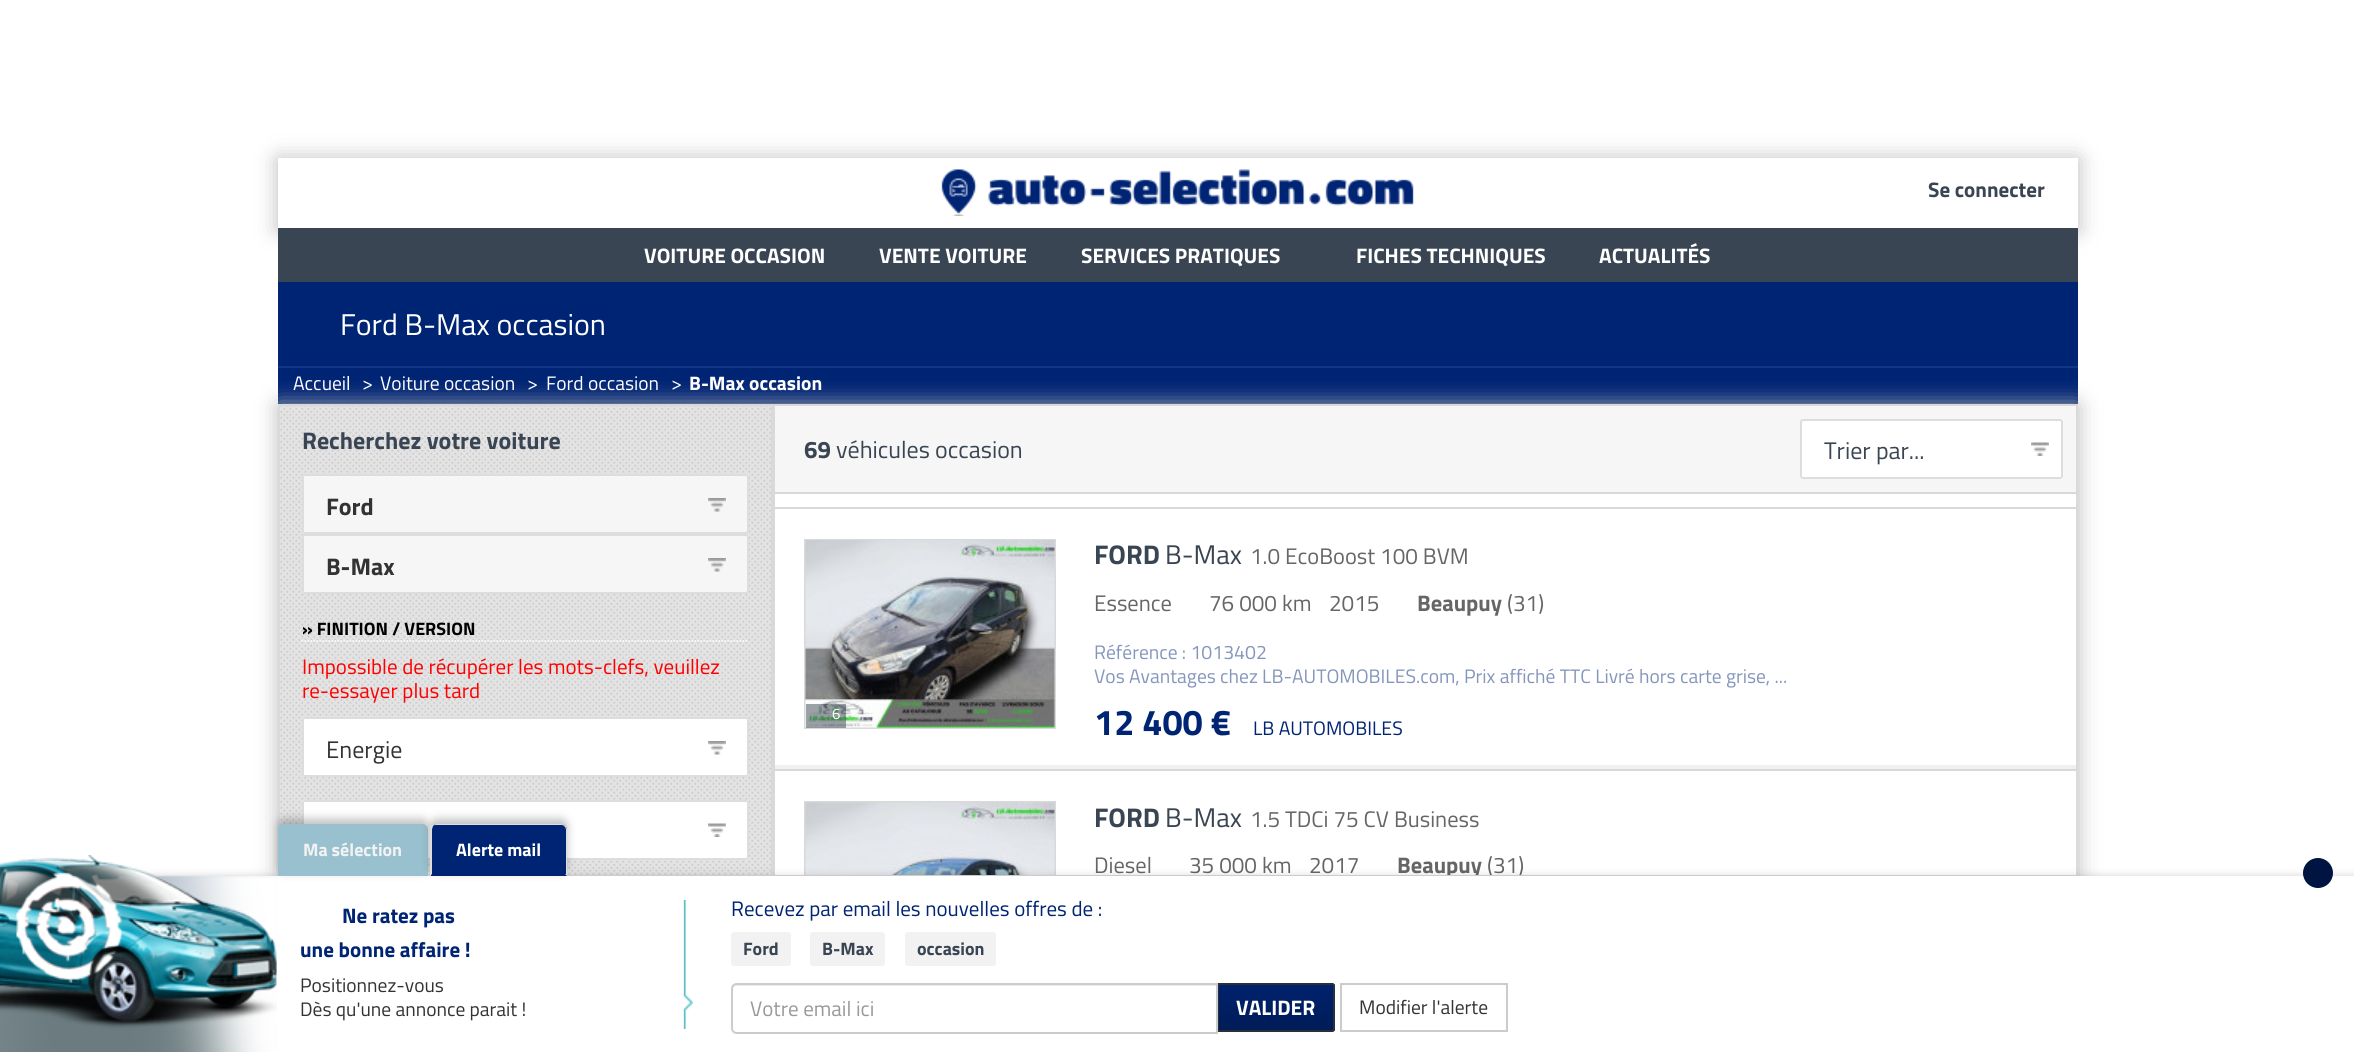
import math
import cairo

surface = cairo.ImageSurface(cairo.FORMAT_RGB24, 2354, 1052)
cr = cairo.Context(surface)
options = cairo.FontOptions()
options.set_hint_metrics(cairo.HINT_METRICS_OFF)
options.set_hint_style(cairo.HINT_STYLE_NONE)
cr.set_font_options(options)
cr.set_miter_limit(4)


def rgb(code):
    cr.set_source_rgb(*(v / 255 for v in bytes.fromhex(code[-6:])))


def rrect(x, y, w, h, r):
    cr.new_sub_path()
    for i, (u, v) in enumerate([(x + w - r, y + h - r), (x + r, y + h - r), (x + r, y + r), (x + w - r, y + r)]):
        cr.arc(u, v, r, i * math.pi / 2, (i + 1) * math.pi / 2)
    cr.close_path()


def soft_shadow(x, y, w, h, r, blur, alpha):
    cr.push_group_with_content(cairo.CONTENT_ALPHA)
    cr.set_operator(cairo.OPERATOR_SOURCE)
    for i in range(15, -16, -2):
        e = blur * i / 6
        if min(w, h) + 2 * e > 0:
            cr.set_source_rgba(0, 0, 0, alpha * math.erfc((i - 1) / 8.5) / 2)
            rrect(x - e, y - e, w + 2 * e, h + 2 * e, max(0, min(r + e + blur * .6, min(w, h) / 2 + e)))
            cr.fill()
    cr.mask(cr.pop_group())


def image(path, x, y, w, h):
    cr.save()
    cr.set_source_surface(cairo.ImageSurface.create_from_png(path), x, y)
    cr.rectangle(x, y, w, h)
    cr.fill()
    cr.restore()


rgb("#ffffff")
cr.paint()
rgb("#bbbbbb")
soft_shadow(278, 159, 1800, 71, 0, 11, 1)
rgb("#ffffff")
cr.rectangle(278, 158, 1800, 70)
cr.fill()
image("img/1.png", 941, 169, 473, 47)
for x, y, w, h, color in [
    (278, 228, 1800, 54, "#3a4553"),
    (278, 282, 1800, 122, "#002474"),
    (278, 366, 1800, 2, "#123682"),
]:
    rgb(color)
    cr.rectangle(x, y, w, h)
    cr.fill()
rgb("#bbbbbb")
soft_shadow(278, 405, 1800, 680, 0, 11, 1)
rgb("#ffffff")
cr.rectangle(775, 494, 1301, 381)
cr.fill()
rgb("#e3e3e3")
cr.rectangle(280, 406, 491, 469)
cr.fill()
image("img/2.png", 280, 406, 491, 469)
cr.rectangle(279, 405, 493, 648)
rgb("#d9d9d9")
cr.stroke()
rgb("#f6f6f6")
rrect(302, 474, 447, 60, 3)
cr.fill()
image("img/3.png", 708, 498, 18, 14)
rrect(303, 475, 445, 58, 2)
rgb("#dddddd")
cr.stroke()
rgb("#f6f6f6")
rrect(302, 534, 447, 60, 3)
cr.fill()
image("img/3.png", 708, 558, 18, 14)
rrect(303, 535, 445, 58, 2)
rgb("#dddddd")
cr.stroke()
cr.new_path()
cr.move_to(301.5, 641)
cr.line_to(748.5, 641)
rgb("#ffffff")
cr.set_line_width(1.5)
cr.set_dash([1.5, 1.5])
cr.stroke()
rrect(302, 717, 447, 60, 3)
cr.fill()
image("img/4.png", 708, 741, 18, 14)
rrect(303, 718, 445, 58, 2)
rgb("#dddddd")
cr.set_line_width(2)
cr.set_dash([])
cr.stroke()
rgb("#ffffff")
rrect(302, 800, 447, 60, 3)
cr.fill()
image("img/5.png", 708, 823, 18, 14)
rrect(303, 801, 445, 58, 2)
rgb("#dddddd")
cr.stroke()
rgb("#f6f6f6")
cr.rectangle(774, 405, 1303, 88)
cr.fill_preserve()
rgb("#d9d9d9")
cr.stroke()
rgb("#ffffff")
rrect(1800, 419, 263, 60, 3)
cr.fill()
image("img/6.png", 2031, 442, 18, 14)
rrect(1801, 420, 261, 58, 2)
rgb("#dddddd")
cr.stroke()
for x, y, w, h, color in [
    (2077, 494, 1, 13, "#d9d9d9"),
    (773, 494, 2, 13, "#d9d9d9"),
    (774, 765, 1302, 4, "#eff0f1"),
]:
    rgb(color)
    cr.rectangle(x, y, w, h)
    cr.fill()
cr.rectangle(774, 508, 1303, 262)
rgb("#d9d9d9")
cr.stroke()
cr.rectangle(805, 540, 250, 188)
cr.stroke()
image("img/7.png", 805, 540, 250, 188)
cr.set_source_rgba(0.227, 0.271, 0.325, 0.5)
cr.rectangle(806, 704, 40, 24)
cr.fill()
rgb("#d9d9d9")
cr.rectangle(2077, 771, 1, 104)
cr.rectangle(773, 771, 2, 104)
cr.fill()
cr.rectangle(805, 802, 250, 189)
cr.stroke()
image("img/8.png", 805, 802, 250, 73)
cr.select_font_face("Titillium Web", cairo.FONT_SLANT_NORMAL, cairo.FONT_WEIGHT_BOLD)
cr.set_font_size(21)
rgb("#3a4553")
cr.move_to(1928, 197)
cr.show_text("Se connecter")
rgb("#ffffff")
for x, y, s in [
    (644, 263, "VOITURE OCCASION"),
    (879, 263, "VENTE VOITURE"),
    (1081, 263, "SERVICES PRATIQUES"),
    (1356, 263, "FICHES TECHNIQUES"),
    (1599, 263, "ACTUALITÉS"),
]:
    cr.move_to(x, y)
    cr.show_text(s)
cr.select_font_face("Titillium Web")
cr.set_font_size(30)
cr.move_to(340, 335)
cr.show_text("Ford B-Max occasion")
cr.set_font_size(19.5)
for x, y, s in [
    (293, 390, "Accueil"),
    (362, 390, ">"),
    (380, 390, "Voiture occasion"),
    (527, 390, ">"),
    (546, 390, "Ford occasion"),
    (671, 390, ">"),
]:
    cr.move_to(x, y)
    cr.show_text(s)
cr.select_font_face("Titillium Web", cairo.FONT_SLANT_NORMAL, cairo.FONT_WEIGHT_BOLD)
cr.move_to(689, 390)
cr.show_text("B-Max occasion")
cr.set_font_size(24)
rgb("#3a4553")
cr.move_to(302, 449)
cr.show_text("Recherchez votre voiture")
rgb("#333333")
cr.move_to(326, 515)
cr.show_text("Ford")
cr.move_to(326, 575)
cr.show_text("B-Max")
cr.set_font_size(18)
rgb("#000000")
cr.move_to(302, 635)
cr.show_text("» FINITION / VERSION")
cr.select_font_face("Titillium Web")
cr.set_font_size(21)
rgb("#ff0000")
cr.move_to(302, 674)
cr.show_text("Impossible de récupérer les mots-clefs, veuillez")
cr.move_to(302, 698)
cr.show_text("re-essayer plus tard")
cr.set_font_size(24)
rgb("#333333")
cr.move_to(326, 758)
cr.show_text("Energie")
cr.select_font_face("Titillium Web", cairo.FONT_SLANT_NORMAL, cairo.FONT_WEIGHT_BOLD)
rgb("#3a4553")
cr.move_to(804, 458)
cr.show_text("69")
cr.select_font_face("Titillium Web")
cr.move_to(836, 458)
cr.show_text("véhicules occasion")
cr.move_to(1824, 459)
cr.show_text("Trier par...")
cr.set_font_size(15)
rgb("#ffffff")
cr.move_to(832, 719)
cr.show_text("6")
cr.select_font_face("Titillium Web", cairo.FONT_SLANT_NORMAL, cairo.FONT_WEIGHT_BOLD)
cr.set_font_size(27)
rgb("#3a4553")
cr.move_to(1094, 564)
cr.show_text("FORD")
cr.select_font_face("Titillium Web")
cr.move_to(1165, 564)
cr.show_text("B-Max")
cr.set_font_size(22.5)
rgb("#666666")
for x, y, s in [
    (1250, 564, "1.0 EcoBoost 100 BVM"),
    (1094, 611, "Essence"),
    (1209, 611, "76 000 km"),
    (1329, 611, "2015"),
]:
    cr.move_to(x, y)
    cr.show_text(s)
cr.select_font_face("Titillium Web", cairo.FONT_SLANT_NORMAL, cairo.FONT_WEIGHT_BOLD)
cr.move_to(1417, 611)
cr.show_text("Beaupuy")
cr.select_font_face("Titillium Web")
cr.move_to(1507, 611)
cr.show_text("(31)")
cr.set_font_size(19.5)
rgb("#8596bc")
cr.move_to(1094, 659)
cr.show_text("Référence : 1013402")
cr.move_to(1094, 683)
cr.show_text("Vos Avantages chez LB-AUTOMOBILES.com, Prix affiché TTC Livré hors carte grise, ...")
cr.select_font_face("Titillium Web", cairo.FONT_SLANT_NORMAL, cairo.FONT_WEIGHT_BOLD)
cr.set_font_size(36)
rgb("#002474")
cr.move_to(1094, 735)
cr.show_text("12 400 €")
cr.select_font_face("Titillium Web")
cr.set_font_size(19.5)
cr.move_to(1253, 735)
cr.show_text("LB AUTOMOBILES")
cr.select_font_face("Titillium Web", cairo.FONT_SLANT_NORMAL, cairo.FONT_WEIGHT_BOLD)
cr.set_font_size(27)
rgb("#3a4553")
cr.move_to(1094, 827)
cr.show_text("FORD")
cr.select_font_face("Titillium Web")
cr.move_to(1165, 827)
cr.show_text("B-Max")
cr.set_font_size(22.5)
rgb("#666666")
for x, y, s in [
    (1250, 827, "1.5 TDCi 75 CV Business"),
    (1094, 873, "Diesel"),
    (1189, 873, "35 000 km"),
    (1309, 873, "2017"),
]:
    cr.move_to(x, y)
    cr.show_text(s)
cr.select_font_face("Titillium Web", cairo.FONT_SLANT_NORMAL, cairo.FONT_WEIGHT_BOLD)
cr.move_to(1397, 873)
cr.show_text("Beaupuy")
cr.select_font_face("Titillium Web")
cr.move_to(1487, 873)
cr.show_text("(31)")
rgb("#dddddd")
cr.rectangle(428, 875, 1650, 1)
cr.fill()
rgb("#000000")
soft_shadow(0, 878, 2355, 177, 0, 5, 0.25)
rgb("#ffffff")
cr.rectangle(150, 876, 2204, 176)
cr.fill()
rgb("#001441")
cr.arc(2318, 873, 15, 0, 2 * math.pi)
cr.fill()
rgb("#000000")
soft_shadow(278, 819, 150, 53, 6, 4.5, 0.25)
rgb("#99c0ce")
cr.new_path()
cr.move_to(284, 824)
cr.line_to(422, 824)
cr.curve_to(425.5, 824, 428, 826.5, 428, 830)
cr.line_to(428, 876)
cr.line_to(278, 876)
cr.line_to(278, 830)
cr.curve_to(278, 826.5, 280.5, 824, 284, 824)
cr.close_path()
cr.fill()
rgb("#000000")
soft_shadow(431, 819, 136, 53, 6, 4.5, 0.25)
rgb("#002474")
cr.new_path()
cr.move_to(437, 824)
cr.line_to(561, 824)
cr.curve_to(564.5, 824, 567, 826.5, 567, 830)
cr.line_to(567, 876)
cr.line_to(431, 876)
cr.line_to(431, 830)
cr.curve_to(431, 826.5, 433.5, 824, 437, 824)
cr.close_path()
cr.fill()
cr.select_font_face("Titillium Web", cairo.FONT_SLANT_NORMAL, cairo.FONT_WEIGHT_BOLD)
cr.set_font_size(18)
rgb("#ffffff")
cr.move_to(456, 856)
cr.show_text("Alerte mail")
rgb("#dddddd")
cr.new_path()
cr.move_to(436, 824)
cr.line_to(432, 825)
cr.line_to(433, 826)
cr.curve_to(434, 825, 435, 825, 436, 825)
cr.line_to(561, 825)
cr.curve_to(562, 825, 563, 825, 564, 826)
cr.line_to(565, 825)
cr.curve_to(564, 824, 562, 824, 561, 824)
cr.close_path()
cr.fill()
cr.new_path()
cr.move_to(430, 876)
cr.line_to(432, 874)
cr.line_to(432, 830)
cr.curve_to(432, 828, 433, 827, 433, 826)
cr.line_to(432, 825)
cr.line_to(430, 827)
cr.close_path()
cr.fill()
cr.new_path()
cr.move_to(565, 825)
cr.curve_to(566, 826, 567, 828, 567, 830)
cr.line_to(567, 876)
cr.line_to(565, 874)
cr.line_to(566, 874)
cr.line_to(566, 830)
cr.curve_to(566, 828, 565, 827, 564, 826)
cr.close_path()
cr.fill()
rgb("#f2f2f2")
cr.move_to(303, 856)
cr.show_text("Ma sélection")
image("img/9.png", 0, 855, 277, 197)
cr.set_font_size(21)
rgb("#002474")
cr.move_to(342, 923)
cr.show_text("Ne ratez pas")
cr.move_to(300, 957)
cr.show_text("une bonne affaire !")
cr.select_font_face("Titillium Web")
cr.set_font_size(19.5)
rgb("#333333")
cr.move_to(300, 992)
cr.show_text("Positionnez-vous")
cr.move_to(300, 1016)
cr.show_text("Dès qu'une annonce parait !")
image("img/10.png", 682, 900, 11, 129)
cr.set_font_size(21)
rgb("#002474")
cr.move_to(731, 916)
cr.show_text("Recevez par email les nouvelles offres de :")
rgb("#f2f2f2")
rrect(731, 932, 60, 34, 3)
cr.fill()
cr.select_font_face("Titillium Web", cairo.FONT_SLANT_NORMAL, cairo.FONT_WEIGHT_BOLD)
cr.set_font_size(18)
rgb("#3a4553")
cr.move_to(743, 955)
cr.show_text("Ford")
rgb("#f2f2f2")
rrect(810, 932, 75, 34, 3)
cr.fill()
rgb("#3a4553")
cr.move_to(822, 955)
cr.show_text("B-Max")
rgb("#f2f2f2")
rrect(905, 932, 91, 34, 3)
cr.fill()
rgb("#3a4553")
cr.move_to(917, 955)
cr.show_text("occasion")
rgb("#002474")
cr.new_path()
cr.move_to(1217, 983)
cr.line_to(1332, 983)
cr.curve_to(1333.5, 983, 1335, 984.5, 1335, 986)
cr.line_to(1335, 1029)
cr.curve_to(1335, 1030.5, 1333.5, 1032, 1332, 1032)
cr.line_to(1217, 1032)
cr.close_path()
cr.fill()
gradient = cairo.LinearGradient(1276, 1031, 1276, 984)
gradient.add_color_stop_rgba(0, 0, 0, 0, 0.25)
gradient.add_color_stop_rgba(1, 0, 0, 0, 0.05)
cr.set_source(gradient)
cr.rectangle(1219, 984, 116, 47)
cr.fill()
cr.new_path()
cr.move_to(1218, 984)
cr.line_to(1332, 984)
cr.curve_to(1333, 984, 1334, 985, 1334, 986)
cr.line_to(1334, 1029)
cr.curve_to(1334, 1030, 1333, 1031, 1332, 1031)
cr.line_to(1218, 1031)
cr.close_path()
rgb("#29303a")
cr.stroke()
rgb("#ffffff")
cr.new_path()
cr.move_to(737, 983)
cr.line_to(1218, 983)
cr.line_to(1218, 1034)
cr.line_to(737, 1034)
cr.curve_to(733.5, 1034, 731, 1031.5, 731, 1028)
cr.line_to(731, 989)
cr.curve_to(731, 985.5, 733.5, 983, 737, 983)
cr.close_path()
cr.fill()
rgb("#ececec")
cr.new_path()
cr.move_to(736, 986)
cr.line_to(1216, 986)
cr.line_to(1216, 1032)
cr.line_to(1217, 1032)
cr.line_to(1217, 984)
cr.line_to(737, 984)
cr.curve_to(734, 984, 732, 986, 732, 989)
cr.line_to(732, 990)
cr.curve_to(732, 988, 734, 986, 736, 986)
cr.close_path()
cr.fill()
cr.new_path()
cr.move_to(737, 984)
cr.line_to(1217, 984)
cr.line_to(1217, 1033)
cr.line_to(737, 1033)
cr.curve_to(734, 1033, 732, 1031, 732, 1028)
cr.line_to(732, 989)
cr.curve_to(732, 986, 734, 984, 737, 984)
cr.close_path()
rgb("#cccccc")
cr.stroke()
cr.select_font_face("Titillium Web")
cr.set_font_size(21)
rgb("#999999")
cr.move_to(750, 1016)
cr.show_text("Votre email ici")
cr.select_font_face("Titillium Web", cairo.FONT_SLANT_NORMAL, cairo.FONT_WEIGHT_BOLD)
rgb("#ffffff")
cr.move_to(1236, 1015)
cr.show_text("VALIDER")
cr.rectangle(1341, 984, 166, 47)
rgb("#cccccc")
cr.stroke()
cr.select_font_face("Titillium Web")
cr.set_font_size(19.5)
rgb("#333333")
cr.move_to(1359, 1014)
cr.show_text("Modifier l'alerte")
surface.write_to_png("page.png")
